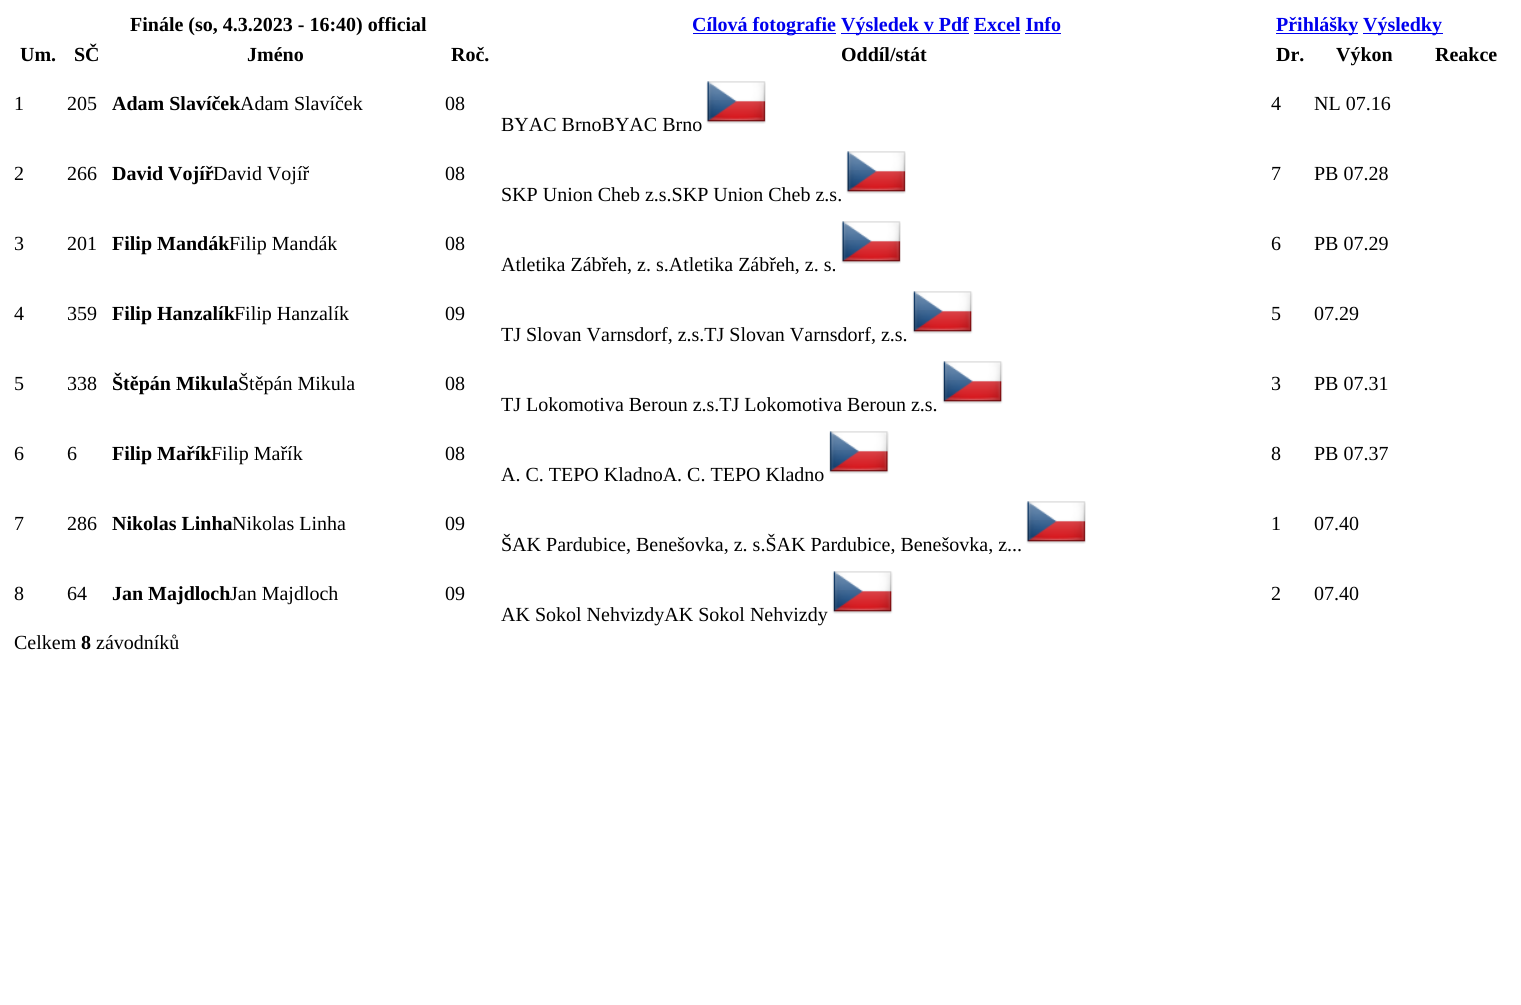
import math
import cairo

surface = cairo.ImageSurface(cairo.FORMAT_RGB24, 1521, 1005)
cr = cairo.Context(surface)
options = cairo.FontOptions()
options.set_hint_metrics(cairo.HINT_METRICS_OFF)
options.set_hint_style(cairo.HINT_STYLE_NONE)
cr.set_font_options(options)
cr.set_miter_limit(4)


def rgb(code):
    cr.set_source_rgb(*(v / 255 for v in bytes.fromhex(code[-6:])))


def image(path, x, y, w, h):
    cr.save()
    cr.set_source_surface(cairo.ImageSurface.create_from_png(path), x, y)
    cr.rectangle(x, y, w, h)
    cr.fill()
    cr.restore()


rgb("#ffffff")
cr.paint()
for x, y, w, h, color in [
    (693, 33, 143, 1, "#0000ee"),
    (841, 33, 128, 1, "#0000ee"),
    (974, 33, 46, 1, "#0000ee"),
    (1025, 33, 36, 1, "#0000ee"),
    (1276, 33, 82, 1, "#0000ee"),
    (1363, 33, 80, 1, "#0000ee"),
]:
    rgb(color)
    cr.rectangle(x, y, w, h)
    cr.fill()
image("img/1.png", 706, 81, 60, 43)
image("img/1.png", 846, 151, 60, 43)
image("img/1.png", 841, 221, 60, 43)
image("img/2.png", 912, 291, 61, 43)
image("img/3.png", 942, 361, 61, 43)
image("img/4.png", 829, 431, 60, 43)
image("img/1.png", 1026, 501, 60, 43)
image("img/5.png", 832, 571, 61, 43)
cr.select_font_face("Liberation Serif", cairo.FONT_SLANT_NORMAL, cairo.FONT_WEIGHT_BOLD)
cr.set_font_size(20)
rgb("#000000")
cr.move_to(130, 31)
cr.show_text("Finále (so, 4.3.2023 - 16:40) official")
rgb("#0000ee")
for x, y, s in [
    (692, 31, "Cílová fotografie"),
    (841, 31, "Výsledek v Pdf Excel Info"),
    (1276, 31, "Přihlášky"),
    (1363, 31, "Výsledky"),
]:
    cr.move_to(x, y)
    cr.show_text(s)
rgb("#000000")
for x, y, s in [
    (20, 61, "Um."),
    (74, 61, "SČ"),
    (247, 61, "Jméno"),
    (451, 61, "Roč."),
    (841, 61, "Oddíl/stát"),
    (1276, 61, "Dr."),
    (1336, 61, "Výkon"),
    (1435, 61, "Reakce"),
]:
    cr.move_to(x, y)
    cr.show_text(s)
cr.select_font_face("Liberation Serif")
cr.move_to(14, 110)
cr.show_text("1")
cr.move_to(67, 110)
cr.show_text("205")
cr.select_font_face("Liberation Serif", cairo.FONT_SLANT_NORMAL, cairo.FONT_WEIGHT_BOLD)
cr.move_to(112, 110)
cr.show_text("Adam Slavíček")
cr.select_font_face("Liberation Serif")
for x, y, s in [
    (240, 110, "Adam Slavíček"),
    (445, 110, "08"),
    (1271, 110, "4"),
    (1314, 110, "NL 07.16"),
    (501, 131, "BYAC BrnoBYAC Brno"),
    (14, 180, "2"),
    (67, 180, "266"),
]:
    cr.move_to(x, y)
    cr.show_text(s)
cr.select_font_face("Liberation Serif", cairo.FONT_SLANT_NORMAL, cairo.FONT_WEIGHT_BOLD)
cr.move_to(112, 180)
cr.show_text("David Vojíř")
cr.select_font_face("Liberation Serif")
for x, y, s in [
    (213, 180, "David Vojíř"),
    (445, 180, "08"),
    (1271, 180, "7"),
    (1314, 180, "PB 07.28"),
    (501, 201, "SKP Union Cheb z.s.SKP Union Cheb z.s."),
    (14, 250, "3"),
    (67, 250, "201"),
]:
    cr.move_to(x, y)
    cr.show_text(s)
cr.select_font_face("Liberation Serif", cairo.FONT_SLANT_NORMAL, cairo.FONT_WEIGHT_BOLD)
cr.move_to(112, 250)
cr.show_text("Filip Mandák")
cr.select_font_face("Liberation Serif")
for x, y, s in [
    (229, 250, "Filip Mandák"),
    (445, 250, "08"),
    (1271, 250, "6"),
    (1314, 250, "PB 07.29"),
    (501, 271, "Atletika Zábřeh, z. s.Atletika Zábřeh, z. s."),
    (14, 320, "4"),
    (67, 320, "359"),
]:
    cr.move_to(x, y)
    cr.show_text(s)
cr.select_font_face("Liberation Serif", cairo.FONT_SLANT_NORMAL, cairo.FONT_WEIGHT_BOLD)
cr.move_to(112, 320)
cr.show_text("Filip Hanzalík")
cr.select_font_face("Liberation Serif")
for x, y, s in [
    (234, 320, "Filip Hanzalík"),
    (445, 320, "09"),
    (1271, 320, "5"),
    (1314, 320, "07.29"),
    (501, 341, "TJ Slovan Varnsdorf, z.s.TJ Slovan Varnsdorf, z.s."),
    (14, 390, "5"),
    (67, 390, "338"),
]:
    cr.move_to(x, y)
    cr.show_text(s)
cr.select_font_face("Liberation Serif", cairo.FONT_SLANT_NORMAL, cairo.FONT_WEIGHT_BOLD)
cr.move_to(112, 390)
cr.show_text("Štěpán Mikula")
cr.select_font_face("Liberation Serif")
for x, y, s in [
    (238, 390, "Štěpán Mikula"),
    (445, 390, "08"),
    (1271, 390, "3"),
    (1314, 390, "PB 07.31"),
    (501, 411, "TJ Lokomotiva Beroun z.s.TJ Lokomotiva Beroun z.s."),
    (14, 460, "6"),
    (67, 460, "6"),
]:
    cr.move_to(x, y)
    cr.show_text(s)
cr.select_font_face("Liberation Serif", cairo.FONT_SLANT_NORMAL, cairo.FONT_WEIGHT_BOLD)
cr.move_to(112, 460)
cr.show_text("Filip Mařík")
cr.select_font_face("Liberation Serif")
for x, y, s in [
    (211, 460, "Filip Mařík"),
    (445, 460, "08"),
    (1271, 460, "8"),
    (1314, 460, "PB 07.37"),
    (501, 481, "A. C. TEPO KladnoA. C. TEPO Kladno"),
    (14, 530, "7"),
    (67, 530, "286"),
]:
    cr.move_to(x, y)
    cr.show_text(s)
cr.select_font_face("Liberation Serif", cairo.FONT_SLANT_NORMAL, cairo.FONT_WEIGHT_BOLD)
cr.move_to(112, 530)
cr.show_text("Nikolas Linha")
cr.select_font_face("Liberation Serif")
for x, y, s in [
    (232, 530, "Nikolas Linha"),
    (445, 530, "09"),
    (1271, 530, "1"),
    (1314, 530, "07.40"),
    (501, 551, "ŠAK Pardubice, Benešovka, z. s.ŠAK Pardubice, Benešovka, z..."),
    (14, 600, "8"),
    (67, 600, "64"),
]:
    cr.move_to(x, y)
    cr.show_text(s)
cr.select_font_face("Liberation Serif", cairo.FONT_SLANT_NORMAL, cairo.FONT_WEIGHT_BOLD)
cr.move_to(112, 600)
cr.show_text("Jan Majdloch")
cr.select_font_face("Liberation Serif")
for x, y, s in [
    (230, 600, "Jan Majdloch"),
    (445, 600, "09"),
    (1271, 600, "2"),
    (1314, 600, "07.40"),
    (501, 621, "AK Sokol NehvizdyAK Sokol Nehvizdy"),
    (14, 649, "Celkem"),
]:
    cr.move_to(x, y)
    cr.show_text(s)
cr.select_font_face("Liberation Serif", cairo.FONT_SLANT_NORMAL, cairo.FONT_WEIGHT_BOLD)
cr.move_to(81, 649)
cr.show_text("8")
cr.select_font_face("Liberation Serif")
cr.move_to(96, 649)
cr.show_text("závodníků")
surface.write_to_png("page.png")
